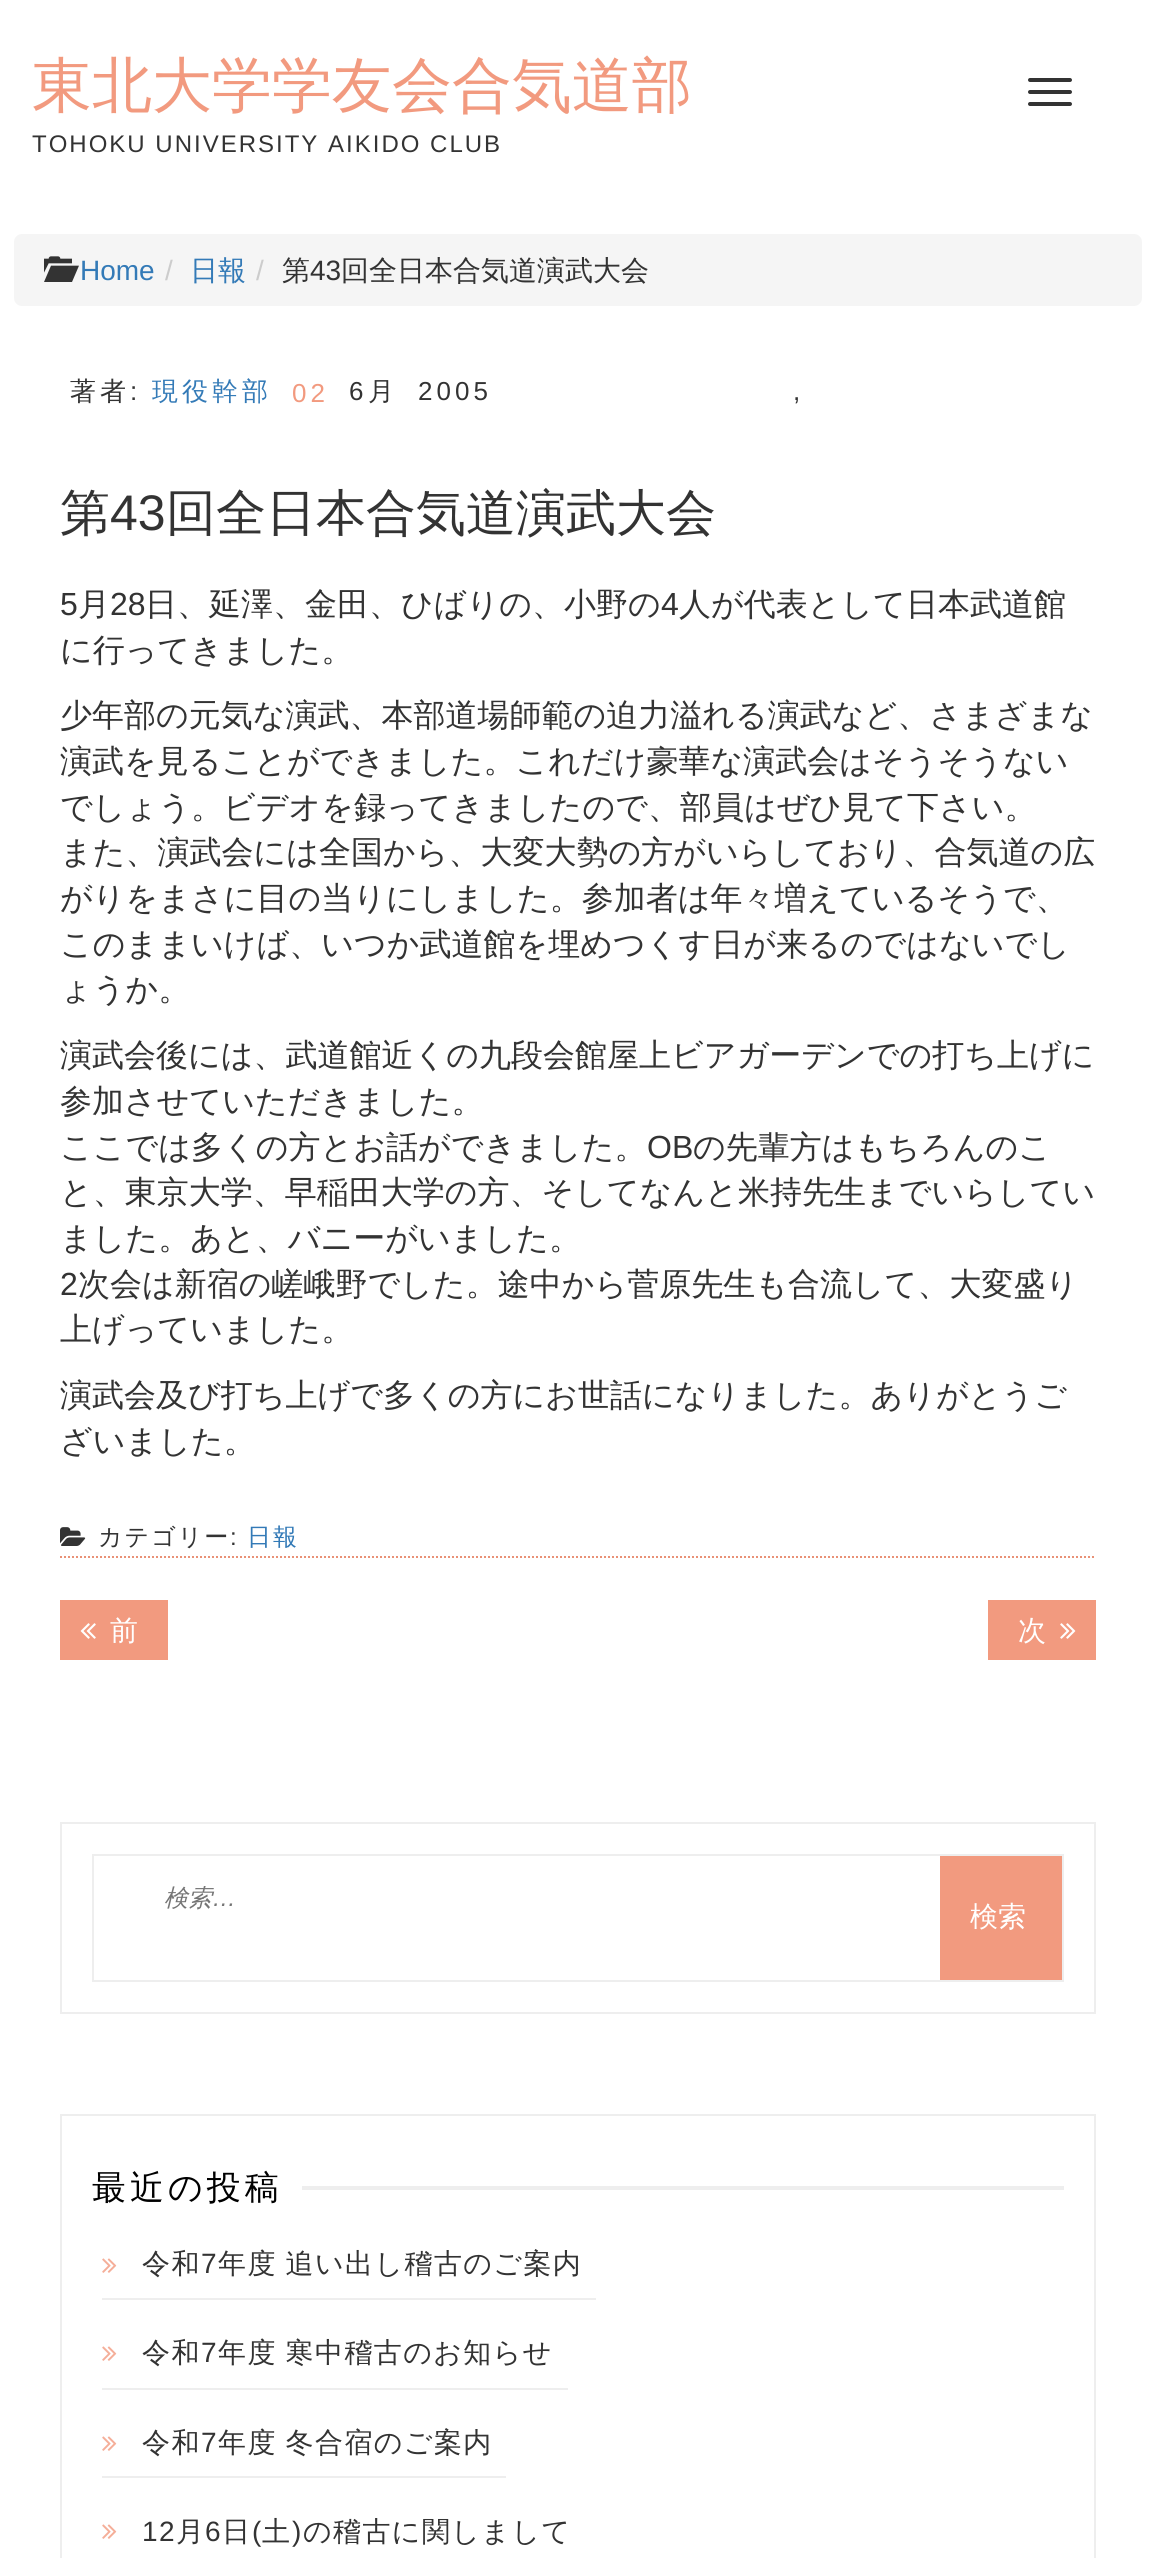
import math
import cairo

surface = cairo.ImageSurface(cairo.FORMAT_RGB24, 1156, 2558)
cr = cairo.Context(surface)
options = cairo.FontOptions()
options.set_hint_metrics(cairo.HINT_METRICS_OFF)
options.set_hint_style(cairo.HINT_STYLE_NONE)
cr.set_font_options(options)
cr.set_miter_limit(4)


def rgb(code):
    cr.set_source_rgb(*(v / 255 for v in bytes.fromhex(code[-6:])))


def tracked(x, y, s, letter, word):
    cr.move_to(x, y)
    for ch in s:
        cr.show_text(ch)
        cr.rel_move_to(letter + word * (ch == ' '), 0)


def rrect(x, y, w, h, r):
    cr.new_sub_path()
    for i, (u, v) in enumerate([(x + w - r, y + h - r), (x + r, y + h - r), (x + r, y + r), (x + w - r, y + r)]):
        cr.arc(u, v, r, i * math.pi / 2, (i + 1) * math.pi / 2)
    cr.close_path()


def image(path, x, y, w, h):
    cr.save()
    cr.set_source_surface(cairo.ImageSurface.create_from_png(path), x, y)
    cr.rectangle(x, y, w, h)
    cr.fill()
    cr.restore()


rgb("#ffffff")
cr.paint()
rgb("#333333")
rrect(1028, 78, 44, 4, 2)
cr.fill()
rrect(1028, 90, 44, 4, 2)
cr.fill()
rrect(1028, 102, 44, 4, 2)
cr.fill()
rgb("#f5f5f5")
rrect(14, 234, 1128, 72, 8)
cr.fill()
image("img/1.png", 44, 256, 35, 26)
cr.new_path()
cr.move_to(60, 1557)
cr.line_to(1096, 1557)
rgb("#e99176")
cr.set_dash([2, 2])
cr.stroke()
image("img/2.png", 60, 1527, 26, 19)
rgb("#f29a7f")
cr.rectangle(60, 1600, 108, 60)
cr.fill()
image("img/3.png", 80, 1623, 16, 16)
cr.rectangle(988, 1600, 108, 60)
cr.fill()
image("img/4.png", 1060, 1623, 16, 16)
cr.rectangle(61, 1823, 1034, 190)
rgb("#eeeeee")
cr.set_dash([])
cr.stroke()
cr.rectangle(93, 1855, 970, 126)
cr.stroke()
rgb("#f29a7f")
cr.rectangle(940, 1856, 122, 124)
cr.fill()
cr.rectangle(61, 2115, 1034, 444)
rgb("#eeeeee")
cr.stroke()
cr.rectangle(302, 2186, 762, 4)
cr.fill()
cr.rectangle(102, 2298, 494, 2)
cr.fill()
image("img/5.png", 102, 2258, 15, 15)
cr.rectangle(102, 2388, 466, 2)
cr.fill()
image("img/5.png", 102, 2346, 15, 15)
cr.rectangle(102, 2476, 404, 2)
cr.fill()
image("img/5.png", 102, 2436, 15, 15)
image("img/5.png", 102, 2524, 15, 15)
cr.select_font_face("WenQuanYi Zen Hei Medium")
cr.set_font_size(60)
rgb("#f29a7f")
cr.move_to(32, 106)
cr.show_text("東北大学学友会合気道部")
cr.select_font_face("Liberation Sans")
cr.set_font_size(24)
rgb("#333333")
tracked(32, 152, "TOHOKU UNIVERSITY AIKIDO CLUB", 2, 0)
cr.set_font_size(28)
rgb("#337ab7")
cr.move_to(80, 280)
cr.show_text("Home")
rgb("#cccccc")
cr.move_to(165, 280)
cr.show_text("/")
cr.select_font_face("WenQuanYi Zen Hei Medium")
rgb("#337ab7")
cr.move_to(190, 280)
cr.show_text("日報")
cr.select_font_face("Liberation Sans")
rgb("#cccccc")
cr.move_to(256, 280)
cr.show_text("/")
cr.select_font_face("WenQuanYi Zen Hei Medium")
rgb("#333333")
cr.move_to(282, 280)
cr.show_text("第")
cr.select_font_face("Liberation Sans")
cr.move_to(310, 280)
cr.show_text("43")
cr.select_font_face("WenQuanYi Zen Hei Medium")
cr.move_to(341, 280)
cr.show_text("回全日本合気道演武大会")
cr.set_font_size(26)
tracked(70, 400, "著者", 4, 0)
cr.select_font_face("Liberation Sans")
tracked(130, 400, ":", 4, 0)
cr.select_font_face("WenQuanYi Zen Hei Medium")
rgb("#337ab7")
tracked(152, 400, "現役幹部", 4, 0)
cr.select_font_face("Liberation Sans")
rgb("#f29a7f")
tracked(292, 402, "02", 4, 0)
rgb("#333333")
tracked(349, 400, "6", 4, 0)
cr.select_font_face("WenQuanYi Zen Hei Medium")
tracked(368, 400, "月", 4, 0)
cr.select_font_face("Liberation Sans")
tracked(418, 400, "2005", 4, 0)
tracked(793, 400, ",", 4, 0)
cr.select_font_face("WenQuanYi Zen Hei Medium")
cr.set_font_size(50)
cr.move_to(60, 530)
cr.show_text("第")
cr.select_font_face("Liberation Sans")
cr.move_to(110, 530)
cr.show_text("43")
cr.select_font_face("WenQuanYi Zen Hei Medium")
cr.move_to(166, 530)
cr.show_text("回全日本合気道演武大会")
cr.select_font_face("Liberation Sans")
cr.set_font_size(32)
cr.move_to(60, 615)
cr.show_text("5")
cr.select_font_face("WenQuanYi Zen Hei Medium")
cr.move_to(78, 615)
cr.show_text("月")
cr.select_font_face("Liberation Sans")
cr.move_to(110, 615)
cr.show_text("28")
cr.select_font_face("WenQuanYi Zen Hei Medium")
cr.move_to(145, 615)
cr.show_text("日、延澤、金田、ひばりの、小野の")
cr.select_font_face("Liberation Sans")
cr.move_to(661, 615)
cr.show_text("4")
cr.select_font_face("WenQuanYi Zen Hei Medium")
for x, y, s in [
    (679, 615, "人が代表として日本武道館"),
    (60, 661, "に行ってきました。"),
    (60, 726, "少年部の元気な演武、本部道場師範の迫力溢れる演武など、さまざまな"),
    (60, 772, "演武を見ることができました。これだけ豪華な演武会はそうそうない"),
    (60, 818, "でしょう。ビデオを録ってきましたので、部員はぜひ見て下さい。"),
    (60, 863, "また、演武会には全国から、大変大勢の方がいらしており、合気道の広"),
    (60, 909, "がりをまさに目の当りにしました。参加者は年々増えているそうで、"),
    (60, 955, "このままいけば、いつか武道館を埋めつくす日が来るのではないでし"),
    (60, 1000, "ょうか。"),
    (60, 1066, "演武会後には、武道館近くの九段会館屋上ビアガーデンでの打ち上げに"),
    (60, 1112, "参加させていただきました。"),
    (60, 1158, "ここでは多くの方とお話ができました。"),
]:
    cr.move_to(x, y)
    cr.show_text(s)
cr.select_font_face("Liberation Sans")
cr.move_to(647, 1158)
cr.show_text("OB")
cr.select_font_face("WenQuanYi Zen Hei Medium")
for x, y, s in [
    (693, 1158, "の先輩方はもちろんのこ"),
    (60, 1203, "と、東京大学、早稲田大学の方、そしてなんと米持先生までいらしてい"),
    (60, 1249, "ました。あと、バニーがいました。"),
]:
    cr.move_to(x, y)
    cr.show_text(s)
cr.select_font_face("Liberation Sans")
cr.move_to(60, 1295)
cr.show_text("2")
cr.select_font_face("WenQuanYi Zen Hei Medium")
for x, y, s in [
    (78, 1295, "次会は新宿の嵯峨野でした。途中から菅原先生も合流して、大変盛り"),
    (60, 1340, "上げっていました。"),
    (60, 1406, "演武会及び打ち上げで多くの方にお世話になりました。ありがとうご"),
    (60, 1452, "ざいました。"),
]:
    cr.move_to(x, y)
    cr.show_text(s)
cr.set_font_size(24)
tracked(98, 1545, "カテゴリー", 2, 0)
cr.select_font_face("Liberation Sans")
tracked(230, 1545, ":", 2, 0)
cr.select_font_face("WenQuanYi Zen Hei Medium")
rgb("#337ab7")
tracked(247, 1545, "日報", 2, 0)
cr.set_font_size(28)
rgb("#ffffff")
cr.move_to(110, 1640)
cr.show_text("前")
cr.move_to(1018, 1640)
cr.show_text("次")
cr.select_font_face("WenQuanYi Zen Hei Medium", cairo.FONT_SLANT_ITALIC)
cr.set_font_size(24)
rgb("#757575")
cr.move_to(164, 1906)
cr.show_text("検索")
cr.select_font_face("Liberation Sans", cairo.FONT_SLANT_ITALIC)
cr.move_to(212, 1906)
cr.show_text("…")
cr.select_font_face("WenQuanYi Zen Hei Medium")
cr.set_font_size(28)
rgb("#ffffff")
cr.move_to(970, 1926)
cr.show_text("検索")
cr.set_font_size(34)
rgb("#000000")
tracked(92, 2199, "最近の投稿", 4, 0)
cr.set_font_size(28)
rgb("#333333")
tracked(142, 2273, "令和", 1.4, 0)
cr.select_font_face("Liberation Sans")
tracked(201, 2273, "7", 1.4, 0)
cr.select_font_face("WenQuanYi Zen Hei Medium")
tracked(218, 2273, "年度 追い出し稽古のご案内", 1.4, -1)
tracked(142, 2362, "令和", 1.4, 0)
cr.select_font_face("Liberation Sans")
tracked(201, 2362, "7", 1.4, 0)
cr.select_font_face("WenQuanYi Zen Hei Medium")
tracked(218, 2362, "年度 寒中稽古のお知らせ", 1.4, -1)
tracked(142, 2452, "令和", 1.4, 0)
cr.select_font_face("Liberation Sans")
tracked(201, 2452, "7", 1.4, 0)
cr.select_font_face("WenQuanYi Zen Hei Medium")
tracked(218, 2452, "年度 冬合宿のご案内", 1.4, -1)
cr.select_font_face("Liberation Sans")
tracked(142, 2541, "12", 1.4, 0)
cr.select_font_face("WenQuanYi Zen Hei Medium")
tracked(176, 2541, "月", 1.4, 0)
cr.select_font_face("Liberation Sans")
tracked(205, 2541, "6", 1.4, 0)
cr.select_font_face("WenQuanYi Zen Hei Medium")
tracked(222, 2541, "日", 1.4, 0)
cr.select_font_face("Liberation Sans")
tracked(252, 2541, "(", 1.4, 0)
cr.select_font_face("WenQuanYi Zen Hei Medium")
tracked(262, 2541, "土", 1.4, 0)
cr.select_font_face("Liberation Sans")
tracked(292, 2541, ")", 1.4, 0)
cr.select_font_face("WenQuanYi Zen Hei Medium")
tracked(303, 2541, "の稽古に関しまして", 1.4, 0)
surface.write_to_png("page.png")
